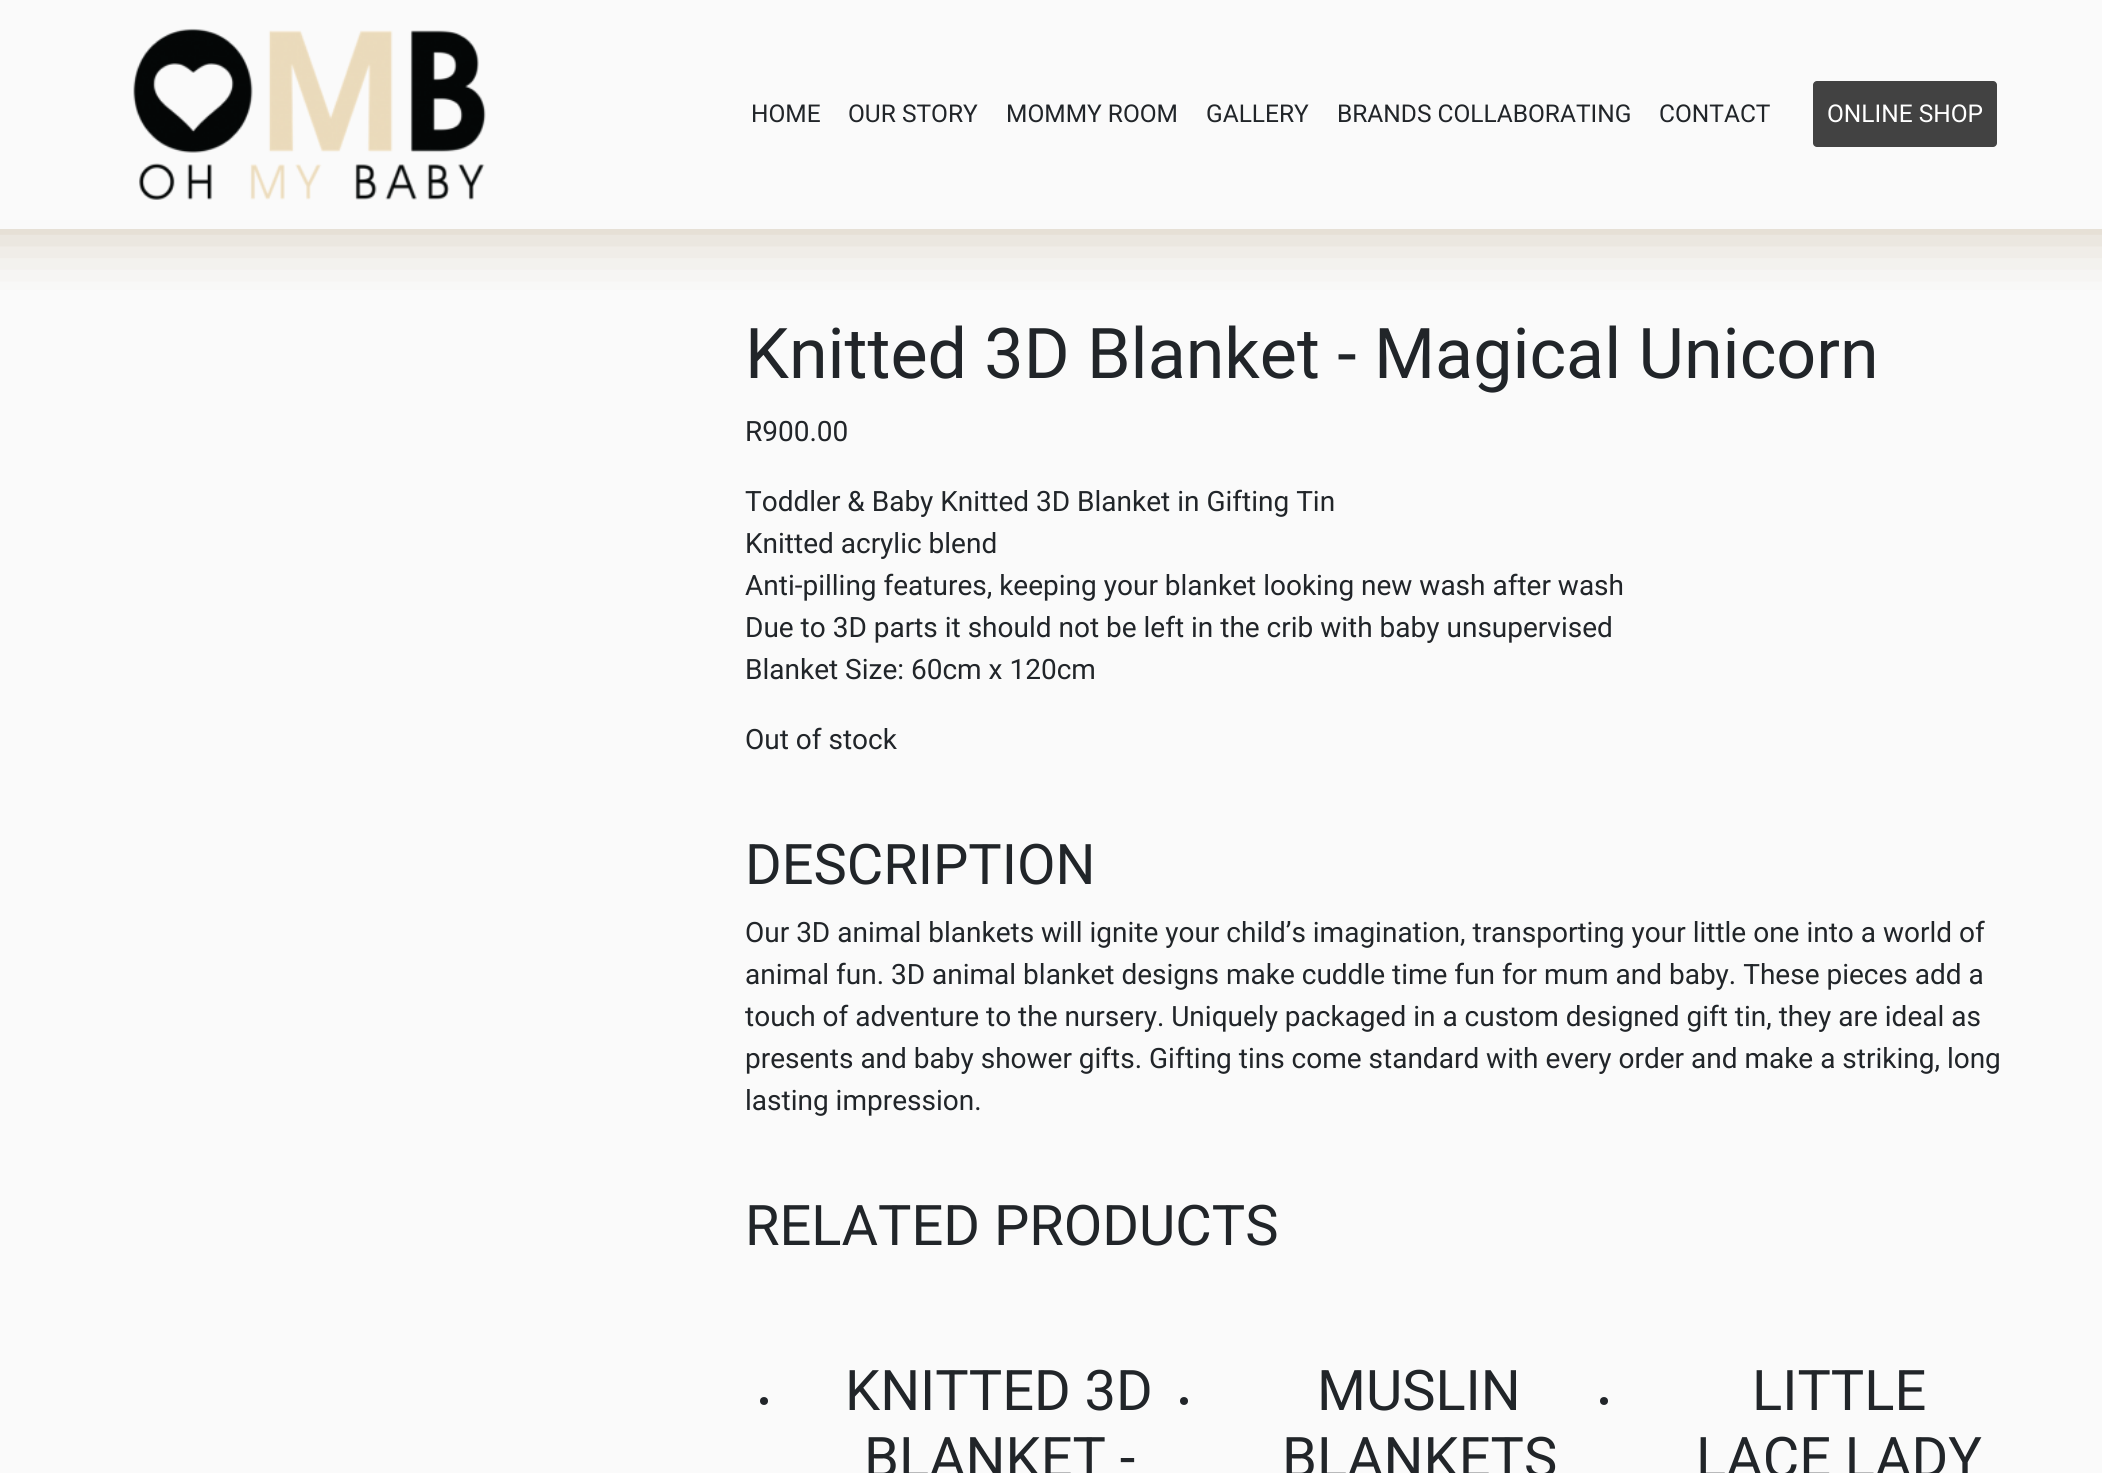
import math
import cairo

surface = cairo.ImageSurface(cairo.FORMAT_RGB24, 2102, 1473)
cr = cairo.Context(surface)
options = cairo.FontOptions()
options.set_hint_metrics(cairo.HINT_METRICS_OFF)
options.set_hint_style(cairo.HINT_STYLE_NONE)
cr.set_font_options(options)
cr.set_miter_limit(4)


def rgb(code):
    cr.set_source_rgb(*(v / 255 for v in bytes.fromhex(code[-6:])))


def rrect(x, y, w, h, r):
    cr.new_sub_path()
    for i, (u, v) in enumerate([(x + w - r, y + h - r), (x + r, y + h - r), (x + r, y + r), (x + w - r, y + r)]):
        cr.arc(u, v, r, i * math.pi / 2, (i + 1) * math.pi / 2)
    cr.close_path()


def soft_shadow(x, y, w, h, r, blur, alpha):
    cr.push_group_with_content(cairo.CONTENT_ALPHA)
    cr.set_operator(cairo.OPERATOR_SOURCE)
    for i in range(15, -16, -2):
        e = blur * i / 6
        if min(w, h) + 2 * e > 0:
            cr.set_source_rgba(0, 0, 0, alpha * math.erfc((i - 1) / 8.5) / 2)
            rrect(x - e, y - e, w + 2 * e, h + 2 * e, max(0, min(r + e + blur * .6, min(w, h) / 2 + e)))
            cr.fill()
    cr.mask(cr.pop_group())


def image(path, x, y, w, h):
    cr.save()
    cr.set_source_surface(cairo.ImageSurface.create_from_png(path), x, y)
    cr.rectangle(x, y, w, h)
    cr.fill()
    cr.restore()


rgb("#fafafa")
cr.paint()
cr.save()
cr.rectangle(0, 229, 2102, 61)
cr.clip()
rgb("#a78e64")
soft_shadow(-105, -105, 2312, 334, 0, 35, 0.48)
cr.restore()
image("img/1.png", 133, 28, 353, 172)
rgb("#424242")
rrect(1813, 81, 184, 66, 4)
cr.fill()
rgb("#212529")
cr.arc(764, 1401, 4, 0, 2 * math.pi)
cr.fill()
cr.arc(1184, 1401, 4, 0, 2 * math.pi)
cr.fill()
cr.arc(1604, 1401, 4, 0, 2 * math.pi)
cr.fill()
cr.select_font_face("Roboto")
cr.set_font_size(24.5)
for x, y, s in [
    (751, 122, "HOME"),
    (848, 122, "OUR STORY"),
    (1006, 122, "MOMMY ROOM"),
    (1206, 122, "GALLERY"),
    (1337, 122, "BRANDS COLLABORATING"),
    (1659, 122, "CONTACT"),
]:
    cr.move_to(x, y)
    cr.show_text(s)
rgb("#ffffff")
cr.move_to(1827, 122)
cr.show_text("ONLINE SHOP")
cr.set_font_size(70)
rgb("#212529")
cr.move_to(745, 378)
cr.show_text("Knitted 3D Blanket - Magical Unicorn")
cr.set_font_size(28)
for x, y, s in [
    (745, 441, "R900.00"),
    (745, 511, "Toddler & Baby Knitted 3D Blanket in Gifting Tin"),
    (745, 553, "Knitted acrylic blend"),
    (745, 595, "Anti-pilling features, keeping your blanket looking new wash after wash"),
    (745, 637, "Due to 3D parts it should not be left in the crib with baby unsupervised"),
    (745, 679, "Blanket Size: 60cm x 120cm"),
    (745, 749, "Out of stock"),
]:
    cr.move_to(x, y)
    cr.show_text(s)
cr.set_font_size(56)
cr.move_to(745, 884)
cr.show_text("DESCRIPTION")
cr.set_font_size(28)
for x, y, s in [
    (745, 942, "Our 3D animal blankets will ignite your child’s imagination, transporting your little one into a world of"),
    (745, 984, "animal fun. 3D animal blanket designs make cuddle time fun for mum and baby. These pieces add a"),
    (745, 1026, "touch of adventure to the nursery. Uniquely packaged in a custom designed gift tin, they are ideal as"),
    (745, 1068, "presents and baby shower gifts. Gifting tins come standard with every order and make a striking, long"),
    (745, 1110, "lasting impression."),
]:
    cr.move_to(x, y)
    cr.show_text(s)
cr.set_font_size(56)
for x, y, s in [
    (745, 1245, "RELATED PRODUCTS"),
    (845, 1410, "KNITTED 3D"),
    (864, 1477, "BLANKET -"),
    (1317, 1410, "MUSLIN"),
    (1282, 1477, "BLANKETS"),
    (1752, 1410, "LITTLE"),
    (1696, 1477, "LACE LADY"),
]:
    cr.move_to(x, y)
    cr.show_text(s)
surface.write_to_png("page.png")
